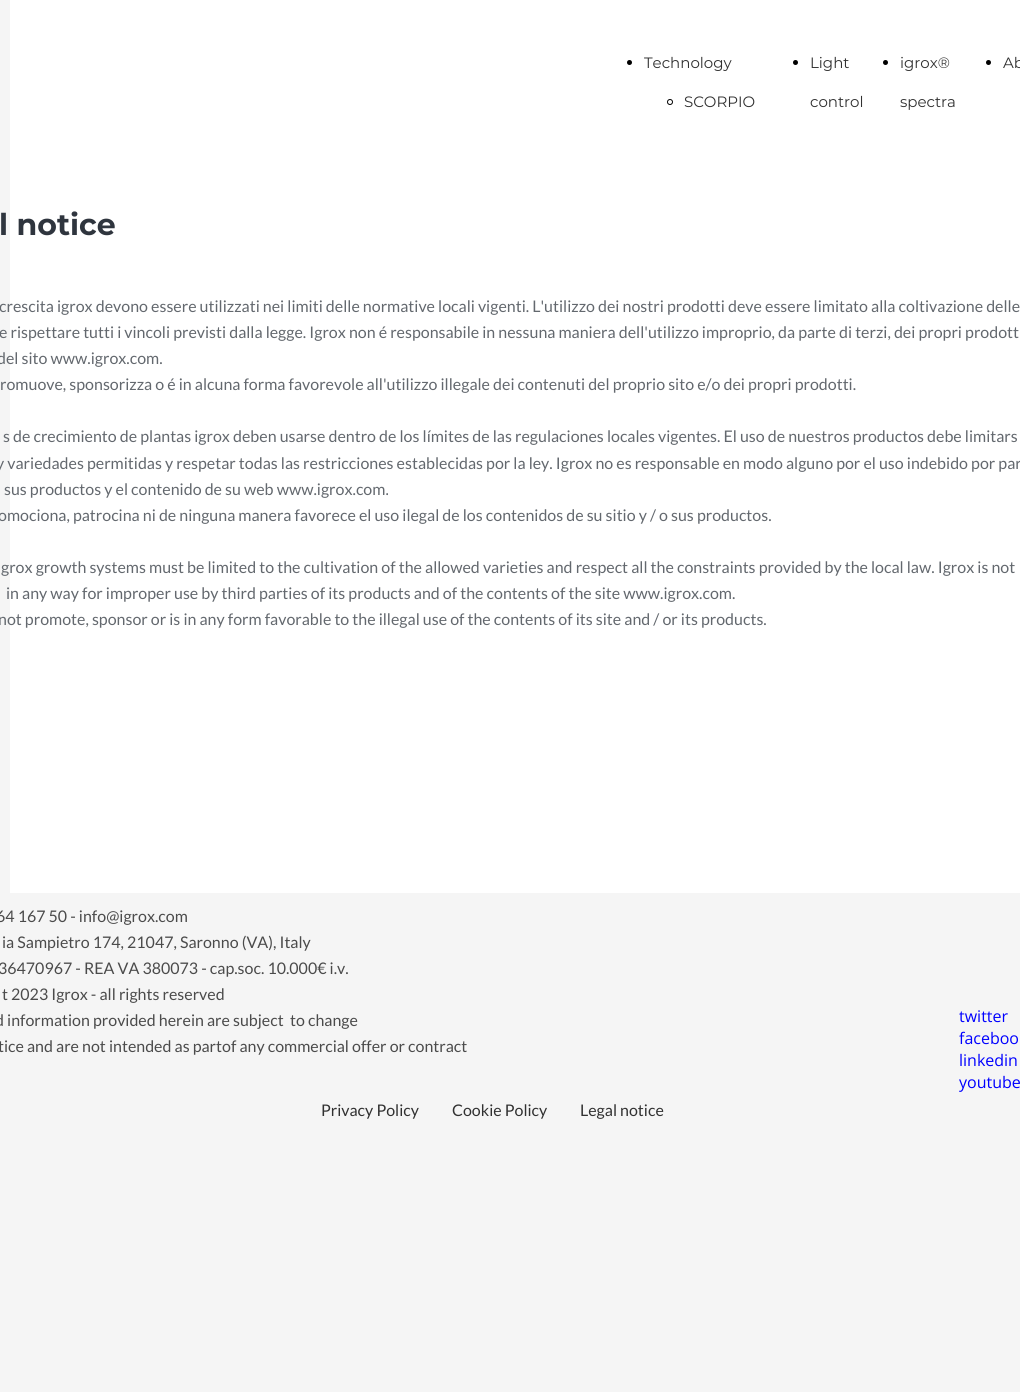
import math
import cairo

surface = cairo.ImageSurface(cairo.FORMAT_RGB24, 1020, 1392)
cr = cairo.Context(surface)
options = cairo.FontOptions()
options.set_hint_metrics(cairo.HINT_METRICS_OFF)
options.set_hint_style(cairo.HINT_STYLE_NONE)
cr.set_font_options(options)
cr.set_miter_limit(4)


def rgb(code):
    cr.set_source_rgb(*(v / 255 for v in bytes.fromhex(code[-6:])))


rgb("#f5f5f5")
cr.paint()
rgb("#ffffff")
cr.rectangle(10, 0, 1010, 893)
cr.fill()
rgb("#000000")
cr.arc(629.5, 62.5, 2.5, 0, 2 * math.pi)
cr.fill()
cr.arc(670, 102, 2.5, 0, 2 * math.pi)
cr.set_line_width(1)
cr.stroke()
cr.arc(795.5, 62.5, 2.5, 0, 2 * math.pi)
cr.fill()
cr.arc(885.5, 62.5, 2.5, 0, 2 * math.pi)
cr.fill()
cr.arc(988.5, 62.5, 2.5, 0, 2 * math.pi)
cr.fill()
cr.select_font_face("Montserrat")
cr.set_font_size(15)
rgb("#313131")
for x, y, s in [
    (644, 68, "Technology"),
    (684, 107, "SCORPIO"),
    (810, 68, "Light"),
    (810, 107, "control"),
    (900, 68, "igrox®"),
    (900, 107, "spectra"),
    (1003, 68, "Ab"),
]:
    cr.move_to(x, y)
    cr.show_text(s)
cr.select_font_face("Montserrat", cairo.FONT_SLANT_NORMAL, cairo.FONT_WEIGHT_BOLD)
cr.set_font_size(30)
rgb("#2f353e")
cr.move_to(-1, 235)
cr.show_text("l notice")
cr.select_font_face("Lato")
cr.set_font_size(16)
rgb("#63686e")
for x, y, s in [
    (-1, 312, "crescita igrox devono essere utilizzati nei limiti delle normative locali vigenti. L'utilizzo dei nostri prodotti deve essere limitato alla coltivazione delle"),
    (-1, 338, "e rispettare tutti i vincoli previsti dalla legge. Igrox non é responsabile in nessuna maniera dell'utilizzo improprio, da parte di terzi, dei propri prodott"),
    (-3, 364, "del sito www.igrox.com."),
    (0, 390, "romuove, sponsorizza o é in alcuna forma favorevole all'utilizzo illegale dei contenuti del proprio sito e/o dei propri prodotti."),
    (3, 442, "s de crecimiento de plantas igrox deben usarse dentro de los límites de las regulaciones locales vigentes. El uso de nuestros productos debe limitars"),
    (-4, 469, "y variedades permitidas y respetar todas las restricciones establecidas por la ley. Igrox no es responsable en modo alguno por el uso indebido por par"),
    (4, 495, "sus productos y el contenido de su web www.igrox.com."),
    (-2, 521, "omociona, patrocina ni de ninguna manera favorece el uso ilegal de los contenidos de su sitio y / o sus productos."),
    (1, 573, "grox growth systems must be limited to the cultivation of the allowed varieties and respect all the constraints provided by the local law. Igrox is not"),
    (6, 599, "in any way for improper use by third parties of its products and of the contents of the site www.igrox.com."),
    (-2, 625, "not promote, sponsor or is in any form favorable to the illegal use of the contents of its site and / or its products."),
]:
    cr.move_to(x, y)
    cr.show_text(s)
rgb("#4b4b4b")
for x, y, s in [
    (-4, 922, "64 167 50 - info@igrox.com"),
    (2, 948, "ia Sampietro 174, 21047, Saronno (VA), Italy"),
    (-2, 974, "36470967 - REA VA 380073 - cap.soc. 10.000€ i.v."),
    (2, 1000, "t 2023 Igrox - all rights reserved"),
    (-5, 1026, "d information provided herein are subject"),
    (290, 1026, "to change"),
    (-2, 1052, "tice and are not intended as partof any commercial offer or contract"),
]:
    cr.move_to(x, y)
    cr.show_text(s)
cr.select_font_face("Open Sans")
rgb("#0000ff")
for x, y, s in [
    (959, 1022, "twitter"),
    (959, 1044, "faceboo"),
    (959, 1066, "linkedin"),
    (959, 1088, "youtube"),
]:
    cr.move_to(x, y)
    cr.show_text(s)
cr.select_font_face("Lato")
rgb("#313131")
for x, y, s in [
    (321, 1116, "Privacy Policy"),
    (452, 1116, "Cookie Policy"),
    (580, 1116, "Legal notice"),
]:
    cr.move_to(x, y)
    cr.show_text(s)
surface.write_to_png("page.png")
